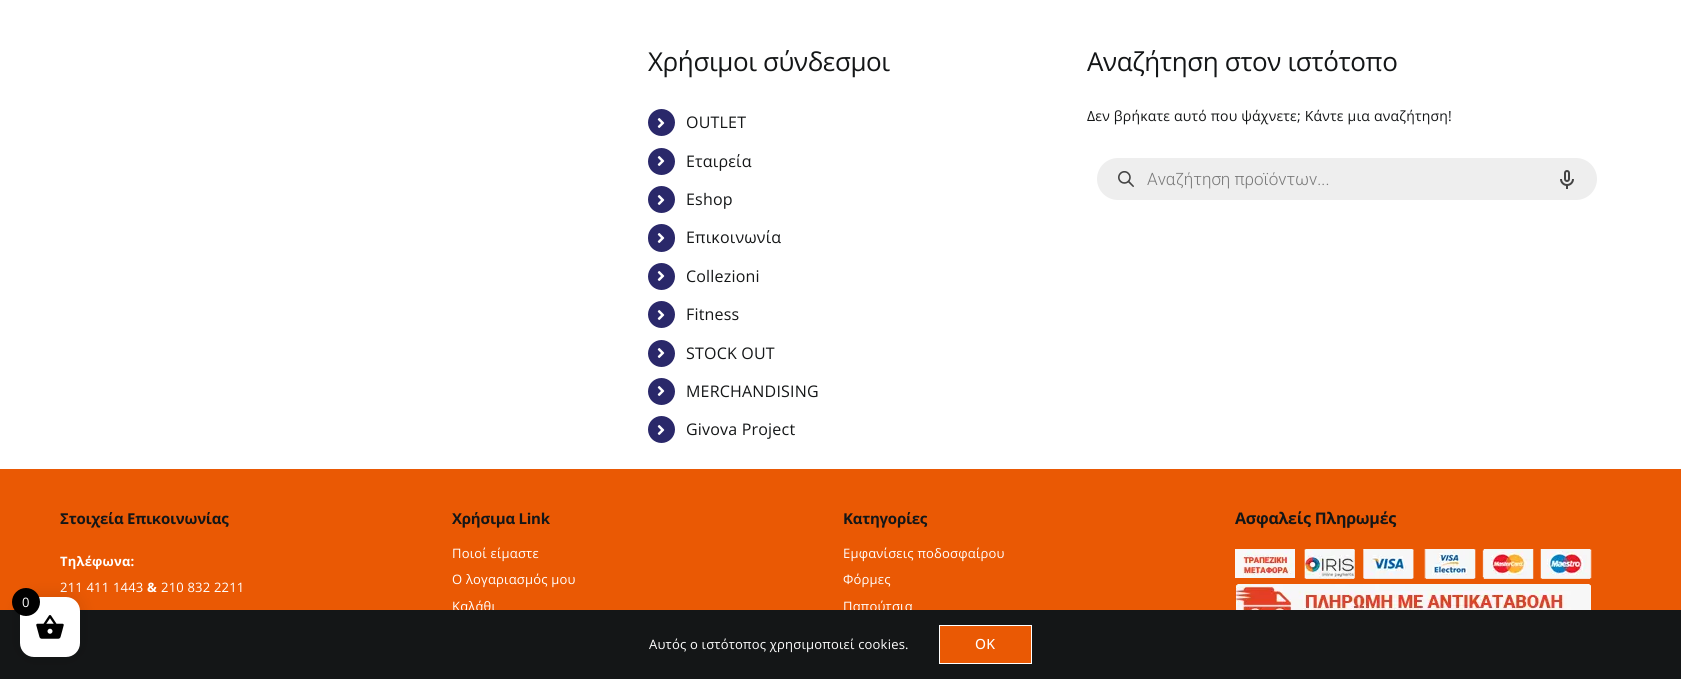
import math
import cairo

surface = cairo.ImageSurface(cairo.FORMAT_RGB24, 1681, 679)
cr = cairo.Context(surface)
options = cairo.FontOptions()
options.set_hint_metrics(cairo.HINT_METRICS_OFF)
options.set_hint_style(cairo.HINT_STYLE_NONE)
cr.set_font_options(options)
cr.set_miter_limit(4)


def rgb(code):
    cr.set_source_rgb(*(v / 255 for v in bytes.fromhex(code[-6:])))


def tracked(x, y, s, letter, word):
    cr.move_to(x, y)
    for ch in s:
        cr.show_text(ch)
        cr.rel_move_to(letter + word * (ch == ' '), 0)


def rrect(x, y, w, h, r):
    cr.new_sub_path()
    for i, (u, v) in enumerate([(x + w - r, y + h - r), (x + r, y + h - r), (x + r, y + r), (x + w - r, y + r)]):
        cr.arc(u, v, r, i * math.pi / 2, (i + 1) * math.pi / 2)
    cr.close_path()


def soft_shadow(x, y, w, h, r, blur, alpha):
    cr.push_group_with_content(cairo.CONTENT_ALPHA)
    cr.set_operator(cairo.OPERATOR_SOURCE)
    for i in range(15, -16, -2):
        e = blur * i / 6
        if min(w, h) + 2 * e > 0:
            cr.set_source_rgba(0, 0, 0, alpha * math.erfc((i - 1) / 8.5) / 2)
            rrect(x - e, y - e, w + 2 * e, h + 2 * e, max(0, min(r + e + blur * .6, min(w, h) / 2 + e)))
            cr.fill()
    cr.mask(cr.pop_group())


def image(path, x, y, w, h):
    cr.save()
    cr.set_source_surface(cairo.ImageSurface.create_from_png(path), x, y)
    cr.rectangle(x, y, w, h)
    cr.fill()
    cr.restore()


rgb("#ffffff")
cr.paint()
rgb("#2a286a")
cr.arc(661.5, 122.5, 13.5, 0, 2 * math.pi)
cr.fill()
image("img/1.png", 657, 118, 8, 10)
cr.arc(661.5, 161.5, 13.5, 0, 2 * math.pi)
cr.fill()
image("img/1.png", 657, 156, 8, 10)
cr.arc(661.5, 199.5, 13.5, 0, 2 * math.pi)
cr.fill()
image("img/1.png", 657, 195, 8, 10)
rrect(648, 224, 27, 28, 13.5)
cr.fill()
image("img/1.png", 657, 233, 8, 10)
cr.arc(661.5, 276.5, 13.5, 0, 2 * math.pi)
cr.fill()
image("img/1.png", 657, 271, 8, 10)
cr.arc(661.5, 314.5, 13.5, 0, 2 * math.pi)
cr.fill()
image("img/1.png", 657, 310, 8, 10)
cr.arc(661.5, 353.5, 13.5, 0, 2 * math.pi)
cr.fill()
image("img/1.png", 657, 348, 8, 10)
cr.arc(661.5, 391.5, 13.5, 0, 2 * math.pi)
cr.fill()
image("img/1.png", 657, 386, 8, 10)
cr.arc(661.5, 429.5, 13.5, 0, 2 * math.pi)
cr.fill()
image("img/1.png", 657, 425, 8, 10)
rgb("#eeeeee")
rrect(1097, 158, 500, 42, 21)
cr.fill()
image("img/2.png", 1118, 171, 16, 16)
image("img/3.png", 1560, 170, 14, 19)
rgb("#ea5904")
cr.rectangle(0, 469, 1681, 141)
cr.fill()
image("img/4.png", 1235, 549, 357, 61)
cr.select_font_face("Open Sans")
cr.set_font_size(26)
rgb("#141617")
tracked(648, 71, "Χρήσιμοι σύνδεσμοι", -0.4, 0)
cr.set_font_size(16)
for x, y, s in [
    (686, 128, "OUTLET"),
    (686, 167, "Εταιρεία"),
    (686, 205, "Eshop"),
    (686, 243, "Επικοινωνία"),
    (686, 282, "Collezioni"),
    (686, 320, "Fitness"),
    (686, 359, "STOCK OUT"),
    (686, 397, "MERCHANDISING"),
    (686, 435, "Givova Project"),
]:
    tracked(x, y, s, 0.2, 0)
cr.set_font_size(26)
tracked(1087, 71, "Αναζήτηση στον ιστότοπο", -0.4, 0)
cr.set_font_size(14)
tracked(1087, 121, "Δεν βρήκατε αυτό που ψάχνετε; Κάντε μια αναζήτηση!", 0.2, 0)
cr.select_font_face("Roboto Light")
cr.set_font_size(17)
rgb("#777777")
cr.move_to(1147, 185)
cr.show_text("Αναζήτηση προϊόντων...")
cr.select_font_face("Open Sans", cairo.FONT_SLANT_NORMAL, cairo.FONT_WEIGHT_BOLD)
cr.set_font_size(15)
rgb("#141617")
tracked(60, 524, "Στοιχεία Επικοινωνίας", -0.25, 0)
cr.set_font_size(13)
rgb("#ffffff")
tracked(60, 566, "Τηλέφωνα:", 0.2, 0)
cr.select_font_face("Open Sans")
tracked(60, 592, "211 411 1443", 0.2, 0)
cr.select_font_face("Open Sans", cairo.FONT_SLANT_NORMAL, cairo.FONT_WEIGHT_BOLD)
tracked(147, 592, "&", 0.2, 0)
cr.select_font_face("Open Sans")
tracked(161, 592, "210 832 2211", 0.2, 0)
cr.select_font_face("Open Sans", cairo.FONT_SLANT_NORMAL, cairo.FONT_WEIGHT_BOLD)
cr.set_font_size(15)
rgb("#141617")
tracked(452, 524, "Χρήσιμα Link", -0.25, 0)
cr.select_font_face("Open Sans")
cr.set_font_size(13)
rgb("#ffffff")
for x, y, s in [
    (452, 558, "Ποιοί είμαστε"),
    (452, 584, "Ο λογαριασμός μου"),
    (452, 611, "Καλάθι"),
]:
    tracked(x, y, s, 0.2, 0)
cr.select_font_face("Open Sans", cairo.FONT_SLANT_NORMAL, cairo.FONT_WEIGHT_BOLD)
cr.set_font_size(15)
rgb("#141617")
tracked(843, 524, "Κατηγορίες", -0.25, 0)
cr.select_font_face("Open Sans")
cr.set_font_size(13)
rgb("#ffffff")
for x, y, s in [
    (843, 558, "Εμφανίσεις ποδοσφαίρου"),
    (843, 584, "Φόρμες"),
    (843, 611, "Παπούτσια"),
]:
    tracked(x, y, s, 0.2, 0)
cr.select_font_face("Open Sans", cairo.FONT_SLANT_NORMAL, cairo.FONT_WEIGHT_BOLD)
cr.set_font_size(16)
rgb("#141617")
tracked(1235, 524, "Ασφαλείς Πληρωμές", -0.25, 0)
cr.rectangle(0, 610, 1681, 69)
cr.fill()
rgb("#000000")
soft_shadow(18, 595, 64, 64, 16, 7.5, 0.1)
rgb("#ffffff")
rrect(20, 597, 60, 60, 14)
cr.fill()
image("img/5.png", 36, 615, 28, 24)
rgb("#000000")
cr.arc(26, 602, 14, 0, 2 * math.pi)
cr.fill()
cr.select_font_face("Open Sans")
cr.set_font_size(13)
rgb("#ffffff")
tracked(22, 607, "0", 0.2, 0)
tracked(649, 649, "Αυτός ο ιστότοπος χρησιμοποιεί cookies.", 0.2, 0)
rgb("#ea5904")
cr.rectangle(939.5, 625.5, 92, 38)
cr.fill_preserve()
rgb("#ffffff")
cr.set_line_width(1)
cr.stroke()
cr.select_font_face("Open Sans Medium")
cr.set_font_size(14)
tracked(975, 649, "OK", 0.2, 0)
surface.write_to_png("page.png")
